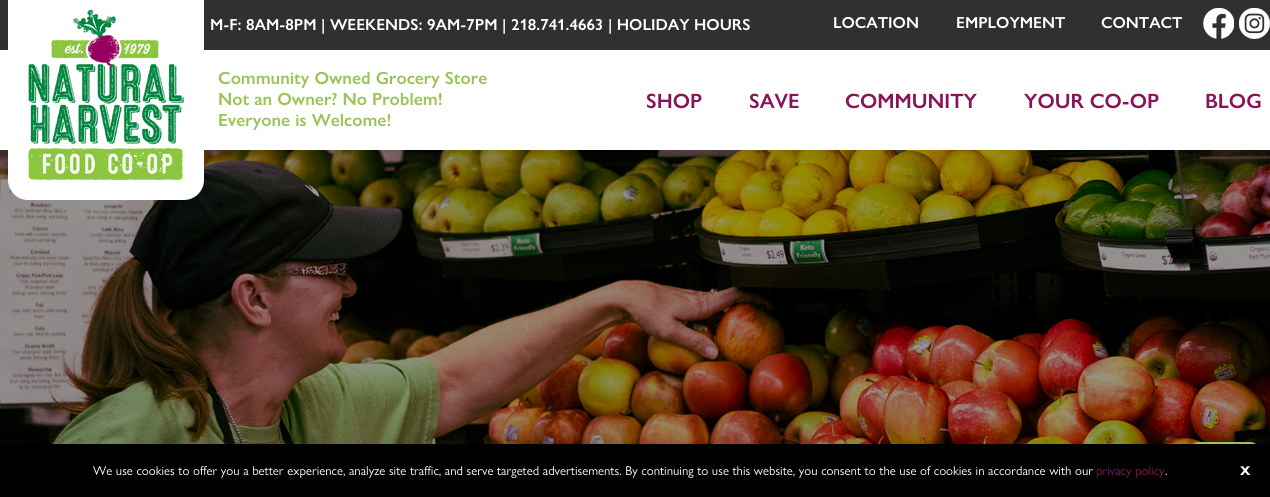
import math
import cairo

surface = cairo.ImageSurface(cairo.FORMAT_RGB24, 1270, 497)
cr = cairo.Context(surface)
options = cairo.FontOptions()
options.set_hint_metrics(cairo.HINT_METRICS_OFF)
options.set_hint_style(cairo.HINT_STYLE_NONE)
cr.set_font_options(options)
cr.set_miter_limit(4)


def rgb(code):
    cr.set_source_rgb(*(v / 255 for v in bytes.fromhex(code[-6:])))


def image(path, x, y, w, h):
    cr.save()
    cr.set_source_surface(cairo.ImageSurface.create_from_png(path), x, y)
    cr.rectangle(x, y, w, h)
    cr.fill()
    cr.restore()


rgb("#ffffff")
cr.paint()
rgb("#2f312e")
cr.rectangle(0, 0, 1270, 50)
cr.fill()
image("img/1.png", 1203, 8, 31, 31)
image("img/2.png", 1239, 8, 31, 31)
rgb("#000000")
cr.rectangle(0, 150, 1270, 294)
cr.fill()
image("img/4.png", 0, 150, 1270, 294)
rgb("#ffffff")
cr.new_path()
cr.move_to(8, 0)
cr.line_to(204, 0)
cr.line_to(204, 180)
cr.curve_to(204, 191, 195, 200, 184, 200)
cr.line_to(28, 200)
cr.curve_to(17, 200, 8, 191, 8, 180)
cr.close_path()
cr.fill()
image("img/3.png", 28, 10, 156, 170)
rgb("#9ac455")
cr.new_path()
cr.move_to(1199, 442)
cr.line_to(1250, 442)
cr.curve_to(1255.5, 442, 1260, 446.5, 1260, 452)
cr.line_to(1260, 497)
cr.line_to(1189, 497)
cr.line_to(1189, 452)
cr.curve_to(1189, 446.5, 1193.5, 442, 1199, 442)
cr.close_path()
cr.fill()
rgb("#000000")
cr.rectangle(0, 444, 1270, 53)
cr.fill()
cr.select_font_face("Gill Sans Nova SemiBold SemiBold")
cr.set_font_size(16)
rgb("#ffffff")
for x, y, s in [
    (210, 30, "M-F: 8AM-8PM | WEEKENDS: 9AM-7PM | 218.741.4663 | HOLIDAY HOURS"),
    (833, 28, "LOCATION"),
    (956, 28, "EMPLOYMENT"),
    (1101, 28, "CONTACT"),
]:
    cr.move_to(x, y)
    cr.show_text(s)
cr.set_font_size(17.6)
rgb("#9ac455")
for x, y, s in [
    (218, 84, "Community Owned Grocery Store"),
    (218, 105, "Not an Owner? No Problem!"),
    (218, 126, "Everyone is Welcome!"),
]:
    cr.move_to(x, y)
    cr.show_text(s)
cr.set_font_size(20.75)
rgb("#88135b")
for x, y, s in [
    (646, 108, "SHOP"),
    (749, 108, "SAVE"),
    (845, 108, "COMMUNITY"),
    (1024, 108, "YOUR CO-OP"),
    (1205, 108, "BLOG"),
]:
    cr.move_to(x, y)
    cr.show_text(s)
cr.select_font_face("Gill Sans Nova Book")
cr.set_font_size(12.8)
rgb("#ffffff")
cr.move_to(93, 475)
cr.show_text("We use cookies to offer you a better experience, analyze site traffic, and serve targeted advertisements. By continuing to use this website, you consent to the use of cookies in accordance with our")
rgb("#88135b")
cr.move_to(1096, 475)
cr.show_text("privacy policy")
rgb("#ffffff")
cr.move_to(1165, 475)
cr.show_text(".")
cr.select_font_face("Gill Sans Nova Book", cairo.FONT_SLANT_NORMAL, cairo.FONT_WEIGHT_BOLD)
cr.move_to(1240, 475)
cr.show_text("X")
surface.write_to_png("page.png")
